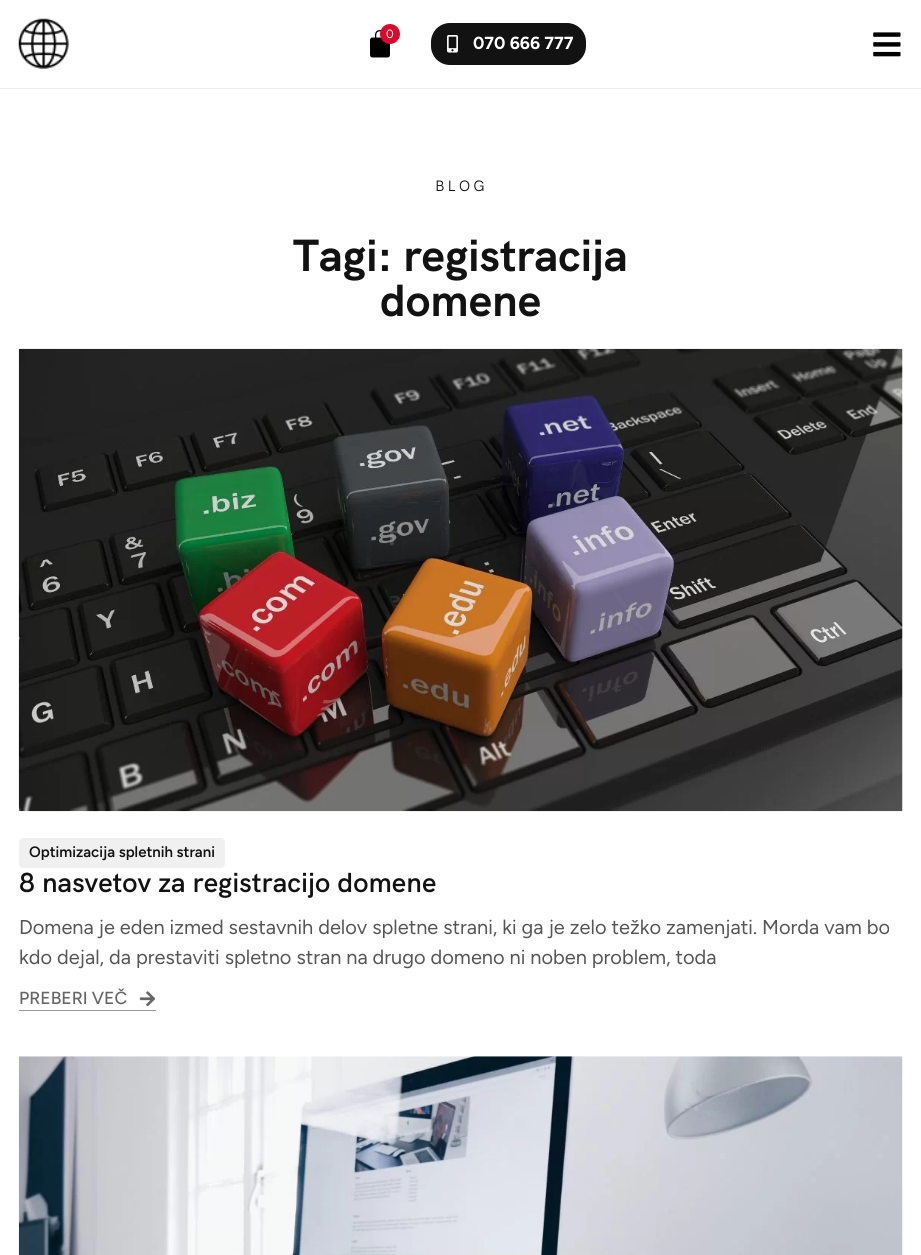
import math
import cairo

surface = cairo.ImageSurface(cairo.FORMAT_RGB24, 921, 1255)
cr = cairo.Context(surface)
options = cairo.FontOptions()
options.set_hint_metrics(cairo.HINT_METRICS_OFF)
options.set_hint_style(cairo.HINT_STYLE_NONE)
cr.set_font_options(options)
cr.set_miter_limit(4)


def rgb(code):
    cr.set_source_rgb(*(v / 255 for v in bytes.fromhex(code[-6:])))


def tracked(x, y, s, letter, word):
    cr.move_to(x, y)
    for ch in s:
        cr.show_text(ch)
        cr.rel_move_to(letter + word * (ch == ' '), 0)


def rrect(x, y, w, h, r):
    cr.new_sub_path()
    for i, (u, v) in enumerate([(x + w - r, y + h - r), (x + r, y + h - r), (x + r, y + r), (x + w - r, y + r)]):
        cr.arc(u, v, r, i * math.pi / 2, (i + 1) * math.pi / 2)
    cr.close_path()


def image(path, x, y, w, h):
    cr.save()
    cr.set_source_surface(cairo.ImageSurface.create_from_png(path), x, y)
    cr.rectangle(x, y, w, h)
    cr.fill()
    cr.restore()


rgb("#ffffff")
cr.paint()
rgb("#ececec")
cr.rectangle(0, 88, 921, 1)
cr.fill()
image("img/1.png", 18, 18, 51, 51)
image("img/2.png", 370, 30, 20, 28)
rgb("#d90a2c")
cr.arc(390, 34, 10, 0, 2 * math.pi)
cr.fill()
rgb("#121212")
rrect(431, 23, 155, 42, 19)
cr.fill()
image("img/3.png", 447, 35, 11, 18)
image("img/4.png", 873, 32, 28, 25)
image("img/5.png", 18, 348, 885, 464)
rgb("#f0f0f0")
rrect(19, 838, 206, 30, 4)
cr.fill()
image("img/6.png", 139, 991, 17, 16)
rgb("#999999")
cr.rectangle(19, 1010, 137, 1)
cr.fill()
image("img/7.png", 18, 1056, 885, 199)
cr.select_font_face("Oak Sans")
cr.set_font_size(12)
rgb("#f1f6f6")
cr.move_to(386, 38)
cr.show_text("0")
cr.select_font_face("Oak Sans", cairo.FONT_SLANT_NORMAL, cairo.FONT_WEIGHT_BOLD)
cr.set_font_size(17.5)
rgb("#ffffff")
cr.move_to(473, 49)
cr.show_text("070 666 777")
cr.select_font_face("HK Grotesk")
cr.set_font_size(15)
rgb("#121212")
tracked(435, 191, "BLOG", 3, 0)
cr.select_font_face("HK Grotesk", cairo.FONT_SLANT_NORMAL, cairo.FONT_WEIGHT_BOLD)
cr.set_font_size(45)
cr.move_to(293, 271)
cr.show_text("Tagi: registracija")
cr.move_to(380, 316)
cr.show_text("domene")
cr.select_font_face("Oak Sans SemiBold")
cr.set_font_size(15)
cr.move_to(29, 857)
cr.show_text("Optimizacija spletnih strani")
cr.select_font_face("HK Grotesk SemiBold")
cr.set_font_size(27.5)
cr.move_to(19, 892)
cr.show_text("8 nasvetov za registracijo domene")
cr.select_font_face("Oak Sans")
cr.set_font_size(20)
rgb("#555555")
cr.move_to(19, 934)
cr.show_text("Domena je eden izmed sestavnih delov spletne strani, ki ga je zelo težko zamenjati. Morda vam bo")
cr.move_to(19, 964)
cr.show_text("kdo dejal, da prestaviti spletno stran na drugo domeno ni noben problem, toda")
cr.select_font_face("Oak Sans Medium")
cr.set_font_size(17.5)
rgb("#666666")
cr.move_to(19, 1004)
cr.show_text("PREBERI VEČ")
surface.write_to_png("page.png")
